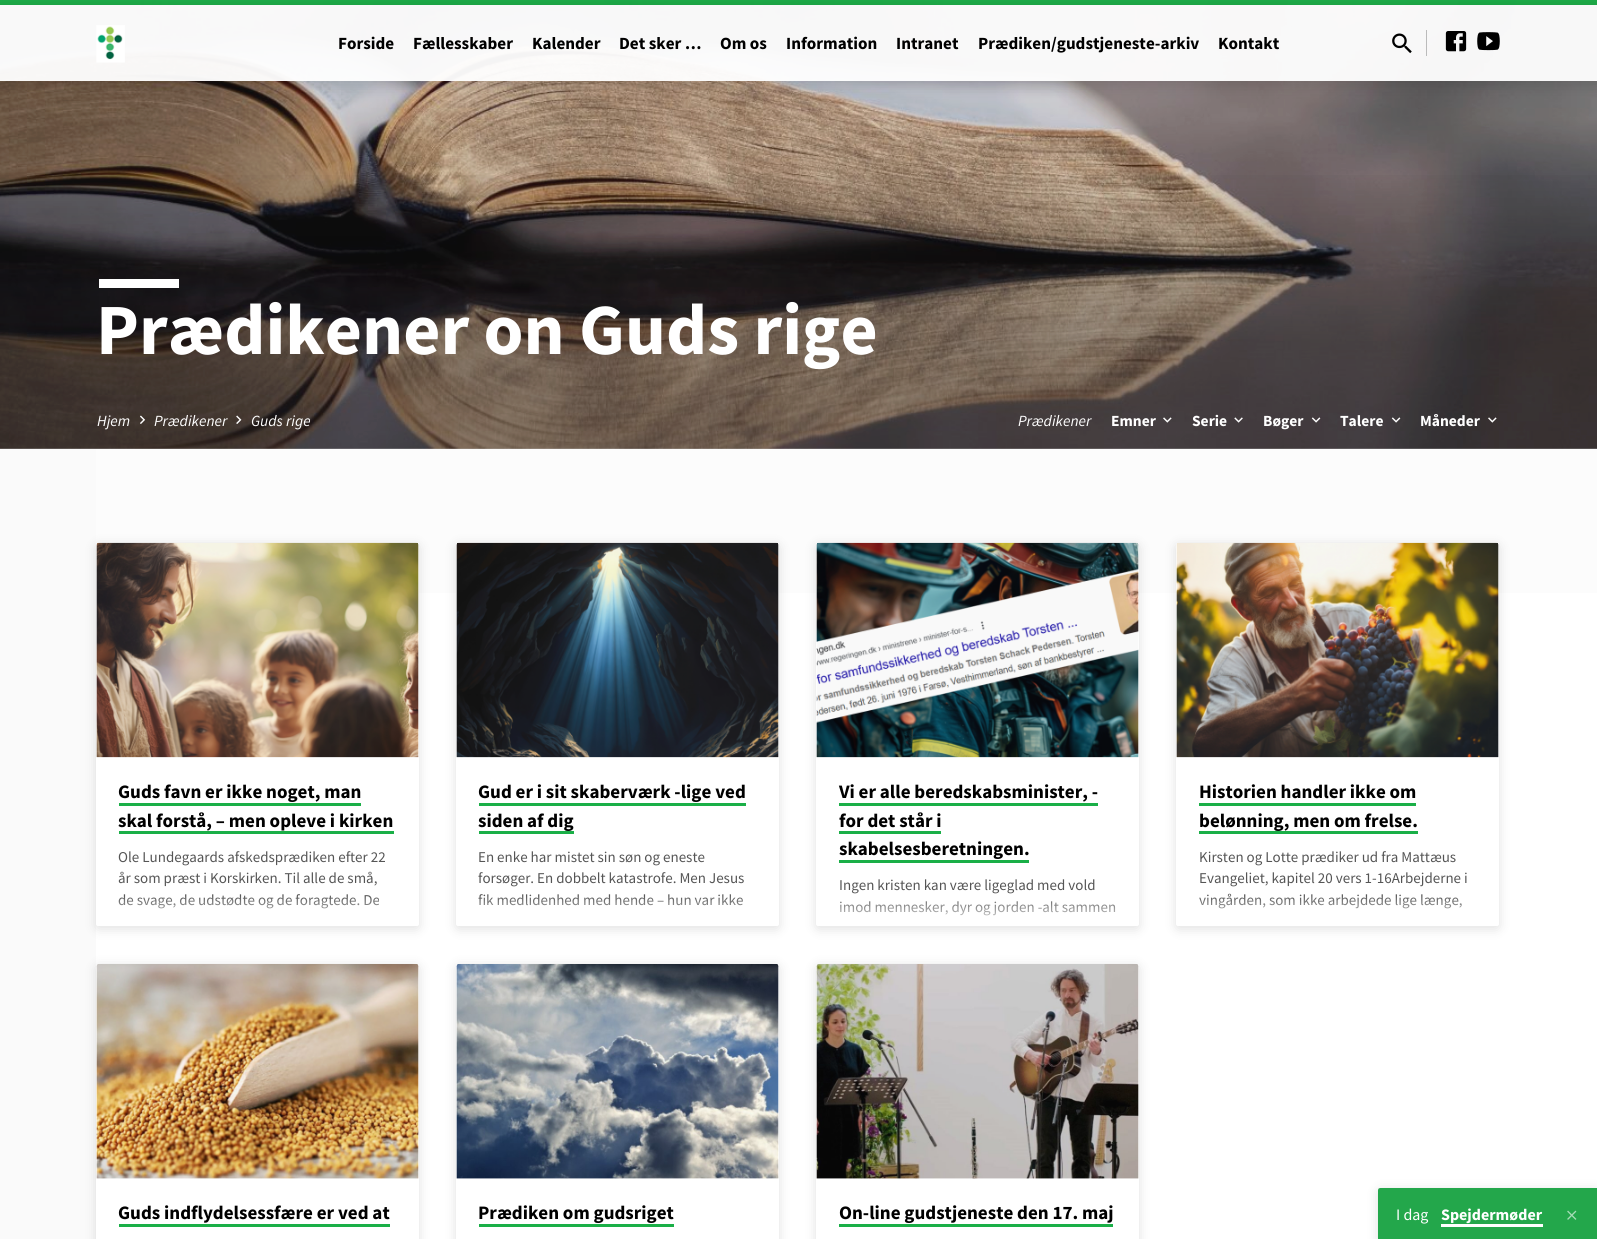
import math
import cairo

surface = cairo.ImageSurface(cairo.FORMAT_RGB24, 1597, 1239)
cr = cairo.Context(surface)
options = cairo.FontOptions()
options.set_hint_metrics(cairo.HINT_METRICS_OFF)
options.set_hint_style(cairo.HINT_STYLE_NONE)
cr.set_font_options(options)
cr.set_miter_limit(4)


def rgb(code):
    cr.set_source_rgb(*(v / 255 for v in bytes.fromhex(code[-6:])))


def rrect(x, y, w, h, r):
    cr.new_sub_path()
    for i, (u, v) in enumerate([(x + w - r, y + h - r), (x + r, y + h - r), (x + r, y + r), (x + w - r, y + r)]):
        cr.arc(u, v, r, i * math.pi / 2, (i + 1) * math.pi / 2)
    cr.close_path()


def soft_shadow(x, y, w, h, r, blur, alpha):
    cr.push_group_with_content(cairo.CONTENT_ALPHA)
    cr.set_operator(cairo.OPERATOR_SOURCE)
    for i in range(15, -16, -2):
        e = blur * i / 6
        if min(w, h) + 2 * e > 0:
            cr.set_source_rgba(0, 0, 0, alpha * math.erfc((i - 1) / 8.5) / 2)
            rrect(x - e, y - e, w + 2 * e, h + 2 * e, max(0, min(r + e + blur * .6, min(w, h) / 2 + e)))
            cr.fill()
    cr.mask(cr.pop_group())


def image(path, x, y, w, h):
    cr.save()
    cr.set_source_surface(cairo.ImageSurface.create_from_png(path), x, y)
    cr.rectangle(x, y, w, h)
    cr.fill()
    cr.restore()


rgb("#ffffff")
cr.paint()
image("img/5.png", 0, 0, 1597, 449)
cr.set_source_rgba(0.102, 0.686, 0.278, 0.95)
cr.rectangle(0, 0, 1597, 5)
cr.fill()
cr.set_source_rgba(1, 1, 1, 0.95)
cr.rectangle(0, 5, 1597, 76)
cr.fill()
cr.save()
cr.set_fill_rule(cairo.FILL_RULE_EVEN_ODD)
cr.new_path()
cr.move_to(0, 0)
cr.line_to(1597, 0)
cr.line_to(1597, 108)
cr.line_to(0, 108)
cr.close_path()
cr.move_to(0, 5)
cr.line_to(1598, 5)
cr.line_to(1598, 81)
cr.line_to(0, 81)
cr.close_path()
cr.clip()
rgb("#000000")
soft_shadow(0, 8, 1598, 76, 0, 7.5, 0.14)
cr.restore()
image("img/1.png", 96, 25, 29, 38)
image("img/2.png", 1392, 33, 20, 21)
rgb("#bbbbbb")
cr.rectangle(1426, 30, 1, 26)
cr.fill()
image("img/3.png", 1445, 31, 22, 21)
image("img/4.png", 1477, 32, 23, 19)
gradient = cairo.LinearGradient(799, 0, 799, 449)
gradient.add_color_stop_rgba(0, 0, 0, 0, 0)
gradient.add_color_stop_rgba(0.36, 0, 0, 0, 0)
gradient.add_color_stop_rgba(0.76, 0, 0, 0, 0.28)
gradient.add_color_stop_rgba(1, 0, 0, 0, 0.28)
cr.set_source(gradient)
cr.rectangle(0, 175, 1597, 274)
cr.fill()
rgb("#ffffff")
cr.rectangle(99, 279, 80, 9)
cr.fill()
image("img/6.png", 140, 415, 6, 9)
image("img/7.png", 236, 415, 6, 9)
image("img/8.png", 1163, 417, 9, 6)
image("img/9.png", 1234, 417, 9, 6)
image("img/10.png", 1311, 417, 10, 6)
image("img/11.png", 1391, 417, 10, 6)
image("img/12.png", 1488, 417, 9, 6)
rgb("#fafafa")
cr.rectangle(0, 449, 96, 790)
cr.fill()
gradient = cairo.LinearGradient(895, 449, 895, 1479)
gradient.add_color_stop_rgba(0.12, 0.988, 0.988, 0.988, 1)
gradient.add_color_stop_rgba(0.24, 1, 1, 1, 1)
cr.set_source(gradient)
cr.rectangle(96, 449, 1501, 144)
cr.fill()
rgb("#000000")
soft_shadow(96, 545, 323, 384, 2.5, 6, 0.12)
rgb("#ffffff")
rrect(96, 543, 323, 383, 2.5)
cr.fill()
image("img/13.png", 96, 542, 323, 216)
rgb("#1aaf47")
cr.rectangle(119, 803, 242, 3)
cr.fill()
cr.rectangle(119, 831, 275, 3)
cr.fill()
rgb("#000000")
soft_shadow(456, 545, 323, 384, 2.5, 6, 0.12)
rgb("#ffffff")
rrect(456, 543, 323, 383, 2.5)
cr.fill()
image("img/14.png", 456, 542, 323, 216)
rgb("#1aaf47")
cr.rectangle(479, 803, 267, 3)
cr.fill()
cr.rectangle(479, 831, 95, 3)
cr.fill()
rgb("#000000")
soft_shadow(816, 545, 323, 384, 2.5, 6, 0.12)
rgb("#ffffff")
rrect(816, 543, 323, 383, 2.5)
cr.fill()
image("img/15.png", 816, 542, 323, 216)
for x, y, w, h, color in [
    (839, 803, 259, 3, "#1aaf47"),
    (839, 831, 102, 3, "#1aaf47"),
    (839, 860, 190, 3, "#1aaf47"),
]:
    rgb(color)
    cr.rectangle(x, y, w, h)
    cr.fill()
rgb("#000000")
soft_shadow(1176, 545, 323, 384, 2.5, 6, 0.12)
rgb("#ffffff")
rrect(1176, 543, 323, 383, 2.5)
cr.fill()
image("img/16.png", 1176, 542, 323, 216)
rgb("#1aaf47")
cr.rectangle(1199, 803, 217, 3)
cr.fill()
cr.rectangle(1199, 831, 219, 3)
cr.fill()
rgb("#000000")
soft_shadow(96, 966, 323, 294, 2.5, 6, 0.12)
rgb("#ffffff")
rrect(96, 964, 323, 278, 2.5)
cr.fill()
image("img/17.png", 96, 964, 323, 215)
rgb("#1aaf47")
cr.rectangle(119, 1224, 271, 3)
cr.fill()
rgb("#000000")
soft_shadow(456, 966, 323, 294, 2.5, 6, 0.12)
rgb("#ffffff")
rrect(456, 964, 323, 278, 2.5)
cr.fill()
image("img/18.png", 456, 964, 323, 215)
rgb("#1aaf47")
cr.rectangle(479, 1224, 195, 3)
cr.fill()
rgb("#000000")
soft_shadow(816, 966, 323, 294, 2.5, 6, 0.12)
rgb("#ffffff")
rrect(816, 964, 323, 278, 2.5)
cr.fill()
image("img/19.png", 816, 964, 323, 215)
rgb("#1aaf47")
cr.rectangle(839, 1224, 274, 3)
cr.fill()
rgb("#000000")
soft_shadow(1378, 1190, 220, 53, 2.5, 6, 0.12)
rgb("#25b350")
cr.new_path()
cr.move_to(1380.5, 1188)
cr.line_to(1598, 1188)
cr.line_to(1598, 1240)
cr.line_to(1378, 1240)
cr.line_to(1378, 1190.5)
cr.curve_to(1378, 1189, 1379, 1188, 1380.5, 1188)
cr.close_path()
cr.fill()
cr.set_source_rgba(0, 0, 0, 0.07)
cr.rectangle(1378, 1188, 219, 51)
cr.fill()
rgb("#ffffff")
cr.rectangle(1441, 1224, 102, 3)
cr.fill()
image("img/20.png", 1567, 1210, 10, 10)
cr.select_font_face("Source Sans Pro", cairo.FONT_SLANT_NORMAL, cairo.FONT_WEIGHT_BOLD)
cr.set_font_size(17.1)
rgb("#000000")
for x, y, s in [
    (338, 49, "Forside"),
    (413, 49, "Fællesskaber"),
    (532, 49, "Kalender"),
    (619, 49, "Det sker …"),
    (720, 49, "Om os"),
    (786, 49, "Information"),
    (896, 49, "Intranet"),
    (978, 49, "Prædiken/gudstjeneste-arkiv"),
    (1218, 49, "Kontakt"),
]:
    cr.move_to(x, y)
    cr.show_text(s)
cr.set_font_size(72)
rgb("#ffffff")
cr.move_to(96, 354)
cr.show_text("Prædikener on Guds rige")
cr.select_font_face("Source Sans Pro", cairo.FONT_SLANT_ITALIC)
cr.set_font_size(15.5)
for x, y, s in [
    (97, 426, "Hjem"),
    (154, 426, "Prædikener"),
    (251, 426, "Guds rige"),
    (1018, 426, "Prædikener"),
]:
    cr.move_to(x, y)
    cr.show_text(s)
cr.select_font_face("Source Sans Pro", cairo.FONT_SLANT_NORMAL, cairo.FONT_WEIGHT_BOLD)
for x, y, s in [
    (1111, 426, "Emner"),
    (1192, 426, "Serie"),
    (1263, 426, "Bøger"),
    (1340, 426, "Talere"),
    (1420, 426, "Måneder"),
]:
    cr.move_to(x, y)
    cr.show_text(s)
cr.set_font_size(19)
rgb("#000000")
cr.move_to(118, 798)
cr.show_text("Guds favn er ikke noget, man")
cr.move_to(118, 827)
cr.show_text("skal forstå, – men opleve i kirken")
cr.select_font_face("Source Sans Pro")
cr.set_font_size(15)
rgb("#555555")
for x, y, s in [
    (118, 862, "Ole Lundegaards afskedsprædiken efter 22"),
    (118, 883, "år som præst i Korskirken. Til alle de små,"),
    (118, 905, "de svage, de udstødte og de foragtede. De"),
]:
    cr.move_to(x, y)
    cr.show_text(s)
gradient = cairo.LinearGradient(258, 895, 258, 926)
gradient.add_color_stop_rgba(0, 1, 1, 1, 0)
gradient.add_color_stop_rgba(1, 1, 1, 1, 0.9)
cr.set_source(gradient)
cr.new_path()
cr.move_to(96, 895)
cr.line_to(419, 895)
cr.line_to(419, 923.5)
cr.curve_to(419, 925, 418, 926, 416.5, 926)
cr.line_to(98.5, 926)
cr.curve_to(97, 926, 96, 925, 96, 923.5)
cr.close_path()
cr.fill()
cr.select_font_face("Source Sans Pro", cairo.FONT_SLANT_NORMAL, cairo.FONT_WEIGHT_BOLD)
cr.set_font_size(19)
rgb("#000000")
cr.move_to(478, 798)
cr.show_text("Gud er i sit skaberværk -lige ved")
cr.move_to(478, 827)
cr.show_text("siden af dig")
cr.select_font_face("Source Sans Pro")
cr.set_font_size(15)
rgb("#555555")
for x, y, s in [
    (478, 862, "En enke har mistet sin søn og eneste"),
    (478, 883, "forsøger. En dobbelt katastrofe. Men Jesus"),
    (478, 905, "fik medlidenhed med hende – hun var ikke"),
]:
    cr.move_to(x, y)
    cr.show_text(s)
gradient = cairo.LinearGradient(618, 895, 618, 926)
gradient.add_color_stop_rgba(0, 1, 1, 1, 0)
gradient.add_color_stop_rgba(1, 1, 1, 1, 0.9)
cr.set_source(gradient)
cr.new_path()
cr.move_to(456, 895)
cr.line_to(779, 895)
cr.line_to(779, 923.5)
cr.curve_to(779, 925, 778, 926, 776.5, 926)
cr.line_to(458.5, 926)
cr.curve_to(457, 926, 456, 925, 456, 923.5)
cr.close_path()
cr.fill()
cr.select_font_face("Source Sans Pro", cairo.FONT_SLANT_NORMAL, cairo.FONT_WEIGHT_BOLD)
cr.set_font_size(19)
rgb("#000000")
for x, y, s in [
    (839, 798, "Vi er alle beredskabsminister, -"),
    (839, 827, "for det står i"),
    (839, 855, "skabelsesberetningen."),
]:
    cr.move_to(x, y)
    cr.show_text(s)
cr.select_font_face("Source Sans Pro")
cr.set_font_size(15)
rgb("#555555")
cr.move_to(839, 890)
cr.show_text("Ingen kristen kan være ligeglad med vold")
cr.move_to(839, 912)
cr.show_text("imod mennesker, dyr og jorden -alt sammen")
gradient = cairo.LinearGradient(978, 895, 978, 926)
gradient.add_color_stop_rgba(0, 1, 1, 1, 0)
gradient.add_color_stop_rgba(1, 1, 1, 1, 0.9)
cr.set_source(gradient)
cr.new_path()
cr.move_to(816, 895)
cr.line_to(1139, 895)
cr.line_to(1139, 923.5)
cr.curve_to(1139, 925, 1138, 926, 1136.5, 926)
cr.line_to(818.5, 926)
cr.curve_to(817, 926, 816, 925, 816, 923.5)
cr.close_path()
cr.fill()
cr.select_font_face("Source Sans Pro", cairo.FONT_SLANT_NORMAL, cairo.FONT_WEIGHT_BOLD)
cr.set_font_size(19)
rgb("#000000")
cr.move_to(1199, 798)
cr.show_text("Historien handler ikke om")
cr.move_to(1199, 827)
cr.show_text("belønning, men om frelse.")
cr.select_font_face("Source Sans Pro")
cr.set_font_size(15)
rgb("#555555")
for x, y, s in [
    (1199, 862, "Kirsten og Lotte prædiker ud fra Mattæus"),
    (1199, 883, "Evangeliet, kapitel 20 vers 1-16Arbejderne i"),
    (1199, 905, "vingården, som ikke arbejdede lige længe,"),
]:
    cr.move_to(x, y)
    cr.show_text(s)
gradient = cairo.LinearGradient(1338, 895, 1338, 926)
gradient.add_color_stop_rgba(0, 1, 1, 1, 0)
gradient.add_color_stop_rgba(1, 1, 1, 1, 0.9)
cr.set_source(gradient)
cr.new_path()
cr.move_to(1176, 895)
cr.line_to(1499, 895)
cr.line_to(1499, 923.5)
cr.curve_to(1499, 925, 1498, 926, 1496.5, 926)
cr.line_to(1178.5, 926)
cr.curve_to(1177, 926, 1176, 925, 1176, 923.5)
cr.close_path()
cr.fill()
cr.select_font_face("Source Sans Pro", cairo.FONT_SLANT_NORMAL, cairo.FONT_WEIGHT_BOLD)
cr.set_font_size(19)
rgb("#000000")
for x, y, s in [
    (118, 1219, "Guds indflydelsessfære er ved at"),
    (478, 1219, "Prædiken om gudsriget"),
    (839, 1219, "On-line gudstjeneste den 17. maj"),
]:
    cr.move_to(x, y)
    cr.show_text(s)
cr.select_font_face("Source Sans Pro")
cr.set_font_size(16)
rgb("#ffffff")
cr.move_to(1396, 1220)
cr.show_text("I dag")
cr.select_font_face("Source Sans Pro", cairo.FONT_SLANT_NORMAL, cairo.FONT_WEIGHT_BOLD)
cr.move_to(1441, 1220)
cr.show_text("Spejdermøder")
surface.write_to_png("page.png")
